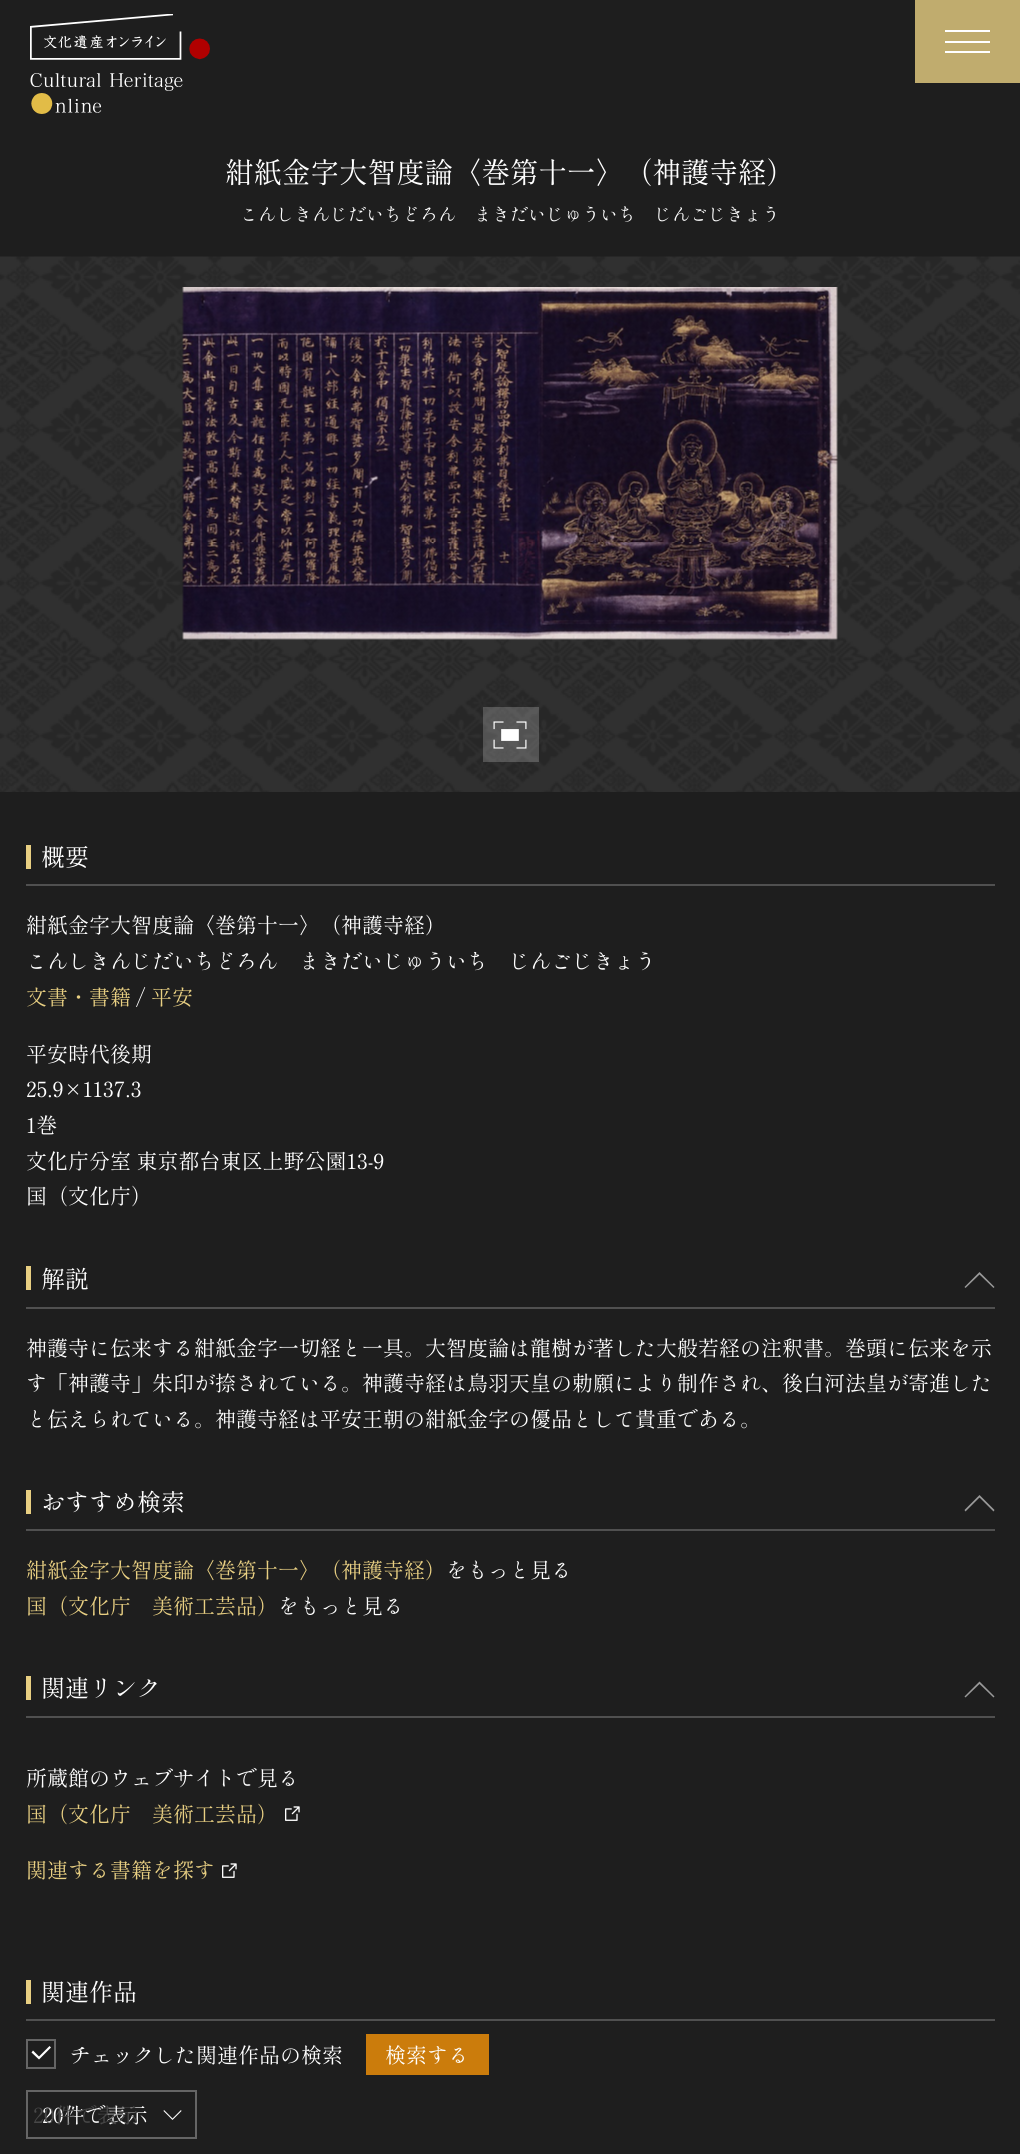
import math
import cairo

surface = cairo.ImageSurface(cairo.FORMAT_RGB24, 1020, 2154)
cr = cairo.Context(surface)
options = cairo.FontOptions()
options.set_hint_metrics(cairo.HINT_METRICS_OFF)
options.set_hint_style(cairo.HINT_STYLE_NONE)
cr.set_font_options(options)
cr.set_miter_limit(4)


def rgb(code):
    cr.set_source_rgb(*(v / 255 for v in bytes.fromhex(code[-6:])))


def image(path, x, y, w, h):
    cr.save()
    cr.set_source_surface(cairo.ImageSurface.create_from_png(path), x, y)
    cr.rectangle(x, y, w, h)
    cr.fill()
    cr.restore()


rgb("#1e1e1e")
cr.paint()
image("img/1.png", 30, 14, 180, 100)
for x, y, w, h, color in [
    (915, 0, 105, 83, "#c0ac6e"),
    (945, 30, 45, 2, "#ffffff"),
    (945, 41, 45, 2, "#ffffff"),
    (945, 51, 45, 2, "#ffffff"),
]:
    rgb(color)
    cr.rectangle(x, y, w, h)
    cr.fill()
image("img/2.png", 0, 256, 1020, 536)
image("img/3.png", 182, 287, 656, 353)
cr.set_source_rgba(1, 1, 1, 0.2)
cr.rectangle(483, 707, 56, 55)
cr.fill()
image("img/4.png", 493, 721, 34, 28)
for x, y, w, h, color in [
    (26, 884, 969, 2, "#505050"),
    (26, 845, 5, 24, "#e8cf82"),
    (26, 1307, 969, 2, "#505050"),
    (26, 1266, 5, 24, "#e8cf82"),
]:
    rgb(color)
    cr.rectangle(x, y, w, h)
    cr.fill()
rgb("#999999")
cr.new_path()
cr.move_to(979.5, 1272)
cr.line_to(994.5, 1287)
cr.line_to(993.5, 1288)
cr.line_to(979.5, 1274.5)
cr.line_to(965.5, 1288)
cr.line_to(964.5, 1287)
cr.close_path()
cr.fill()
rgb("#505050")
cr.rectangle(26, 1529, 969, 2)
cr.fill()
rgb("#e8cf82")
cr.rectangle(26, 1490, 5, 24)
cr.fill()
rgb("#999999")
cr.new_path()
cr.move_to(979.5, 1495)
cr.line_to(994.5, 1510)
cr.line_to(993.5, 1511.5)
cr.line_to(979.5, 1497.5)
cr.line_to(965.5, 1511.5)
cr.line_to(964.5, 1510)
cr.close_path()
cr.fill()
rgb("#505050")
cr.rectangle(26, 1716, 969, 2)
cr.fill()
rgb("#e8cf82")
cr.rectangle(26, 1676, 5, 24)
cr.fill()
rgb("#999999")
cr.new_path()
cr.move_to(979.5, 1681.5)
cr.line_to(994.5, 1696.5)
cr.line_to(993.5, 1697.5)
cr.line_to(979.5, 1684)
cr.line_to(965.5, 1697.5)
cr.line_to(964.5, 1696.5)
cr.close_path()
cr.fill()
image("img/5.png", 285, 1806, 15, 15)
image("img/5.png", 222, 1863, 15, 15)
rgb("#505050")
cr.rectangle(26, 2019, 969, 2)
cr.fill()
rgb("#e8cf82")
cr.rectangle(26, 1980, 5, 24)
cr.fill()
cr.rectangle(27, 2040, 28, 28)
rgb("#656565")
cr.stroke()
rgb("#ffffff")
cr.new_path()
cr.move_to(39, 2059.5)
cr.line_to(31.5, 2052.5)
cr.line_to(33, 2050.5)
cr.line_to(39, 2056.5)
cr.line_to(49.5, 2046)
cr.line_to(51, 2047.5)
cr.close_path()
cr.fill()
rgb("#cb7c0c")
cr.rectangle(366, 2034, 123, 41)
cr.fill()
cr.rectangle(27, 2091, 169, 47)
rgb("#656565")
cr.stroke()
rgb("#ffffff")
cr.new_path()
cr.move_to(172.5, 2120)
cr.line_to(163.5, 2111)
cr.line_to(164, 2110)
cr.line_to(172.5, 2118.5)
cr.line_to(181, 2110)
cr.line_to(181.5, 2111)
cr.close_path()
cr.fill()
cr.select_font_face("Shippori Mincho")
cr.set_font_size(28.5)
cr.move_to(225, 183)
cr.show_text("紺紙金字大智度論〈巻第十一〉（神護寺経）")
cr.set_font_size(18)
cr.move_to(240, 221)
cr.show_text("こんしきんじだいちどろん　まきだいじゅういち　じんごじきょう")
cr.set_font_size(24)
cr.move_to(41, 866)
cr.show_text("概要")
cr.set_font_size(21)
cr.move_to(26, 933)
cr.show_text("紺紙金字大智度論〈巻第十一〉（神護寺経）")
cr.move_to(26, 969)
cr.show_text("こんしきんじだいちどろん　まきだいじゅういち　じんごじきょう")
rgb("#e8cf82")
cr.move_to(26, 1005)
cr.show_text("文書・書籍")
rgb("#ffffff")
cr.move_to(136, 1005)
cr.show_text("/")
rgb("#e8cf82")
cr.move_to(151, 1005)
cr.show_text("平安")
rgb("#ffffff")
for x, y, s in [
    (26, 1062, "平安時代後期"),
    (26, 1097, "25.9×1137.3"),
    (26, 1133, "1巻"),
    (26, 1169, "文化庁分室 東京都台東区上野公園13-9"),
    (26, 1204, "国（文化庁）"),
]:
    cr.move_to(x, y)
    cr.show_text(s)
cr.set_font_size(24)
cr.move_to(41, 1288)
cr.show_text("解説")
cr.set_font_size(21)
for x, y, s in [
    (26, 1356, "神護寺に伝来する紺紙金字一切経と一具。大智度論は龍樹が著した大般若経の注釈書。巻頭に伝来を示"),
    (26, 1391, "す「神護寺」朱印が捺されている。神護寺経は鳥羽天皇の勅願により制作され、後白河法皇が寄進した"),
    (26, 1427, "と伝えられている。神護寺経は平安王朝の紺紙金字の優品として貴重である。"),
]:
    cr.move_to(x, y)
    cr.show_text(s)
cr.set_font_size(24)
cr.move_to(41, 1511)
cr.show_text("おすすめ検索")
cr.set_font_size(21)
rgb("#e8cf82")
cr.move_to(26, 1578)
cr.show_text("紺紙金字大智度論〈巻第十一〉（神護寺経）")
rgb("#ffffff")
cr.move_to(446, 1578)
cr.show_text("をもっと見る")
rgb("#e8cf82")
cr.move_to(26, 1614)
cr.show_text("国（文化庁　美術工芸品）")
rgb("#ffffff")
cr.move_to(278, 1614)
cr.show_text("をもっと見る")
cr.set_font_size(24)
cr.move_to(41, 1697)
cr.show_text("関連リンク")
cr.set_font_size(21)
cr.move_to(26, 1786)
cr.show_text("所蔵館のウェブサイトで見る")
rgb("#e8cf82")
cr.move_to(26, 1822)
cr.show_text("国（文化庁　美術工芸品）")
cr.move_to(26, 1878)
cr.show_text("関連する書籍を探す")
cr.set_font_size(24)
rgb("#ffffff")
cr.move_to(41, 2001)
cr.show_text("関連作品")
cr.set_font_size(21)
for x, y, s in [
    (70, 2063, "チェックした関連作品の検索"),
    (385, 2063, "検索する"),
    (42, 2123, "20件で表示"),
]:
    cr.move_to(x, y)
    cr.show_text(s)
rgb("#484848")
cr.move_to(33, 2123)
cr.show_text("20件で表示")
surface.write_to_png("page.png")
